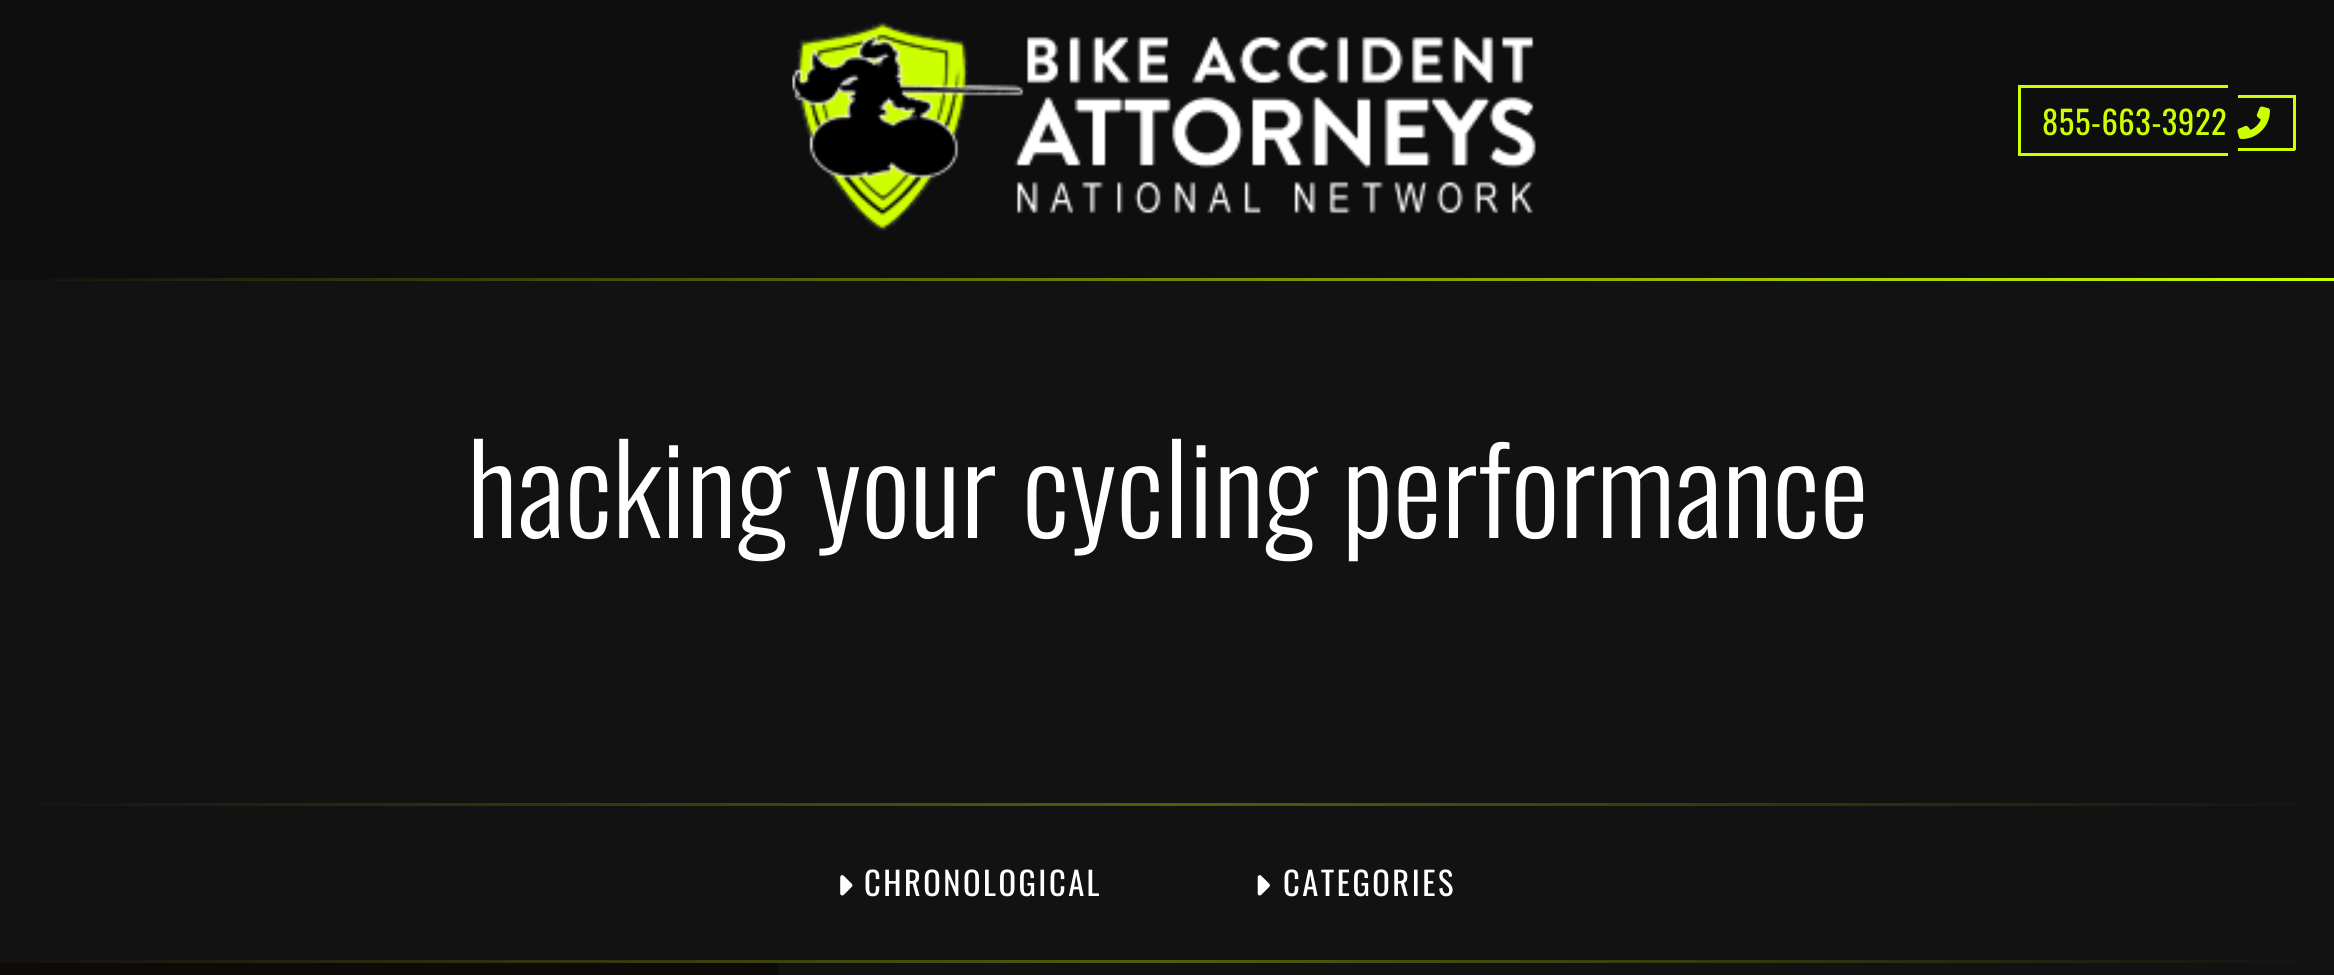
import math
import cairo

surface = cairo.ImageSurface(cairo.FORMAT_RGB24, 2334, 975)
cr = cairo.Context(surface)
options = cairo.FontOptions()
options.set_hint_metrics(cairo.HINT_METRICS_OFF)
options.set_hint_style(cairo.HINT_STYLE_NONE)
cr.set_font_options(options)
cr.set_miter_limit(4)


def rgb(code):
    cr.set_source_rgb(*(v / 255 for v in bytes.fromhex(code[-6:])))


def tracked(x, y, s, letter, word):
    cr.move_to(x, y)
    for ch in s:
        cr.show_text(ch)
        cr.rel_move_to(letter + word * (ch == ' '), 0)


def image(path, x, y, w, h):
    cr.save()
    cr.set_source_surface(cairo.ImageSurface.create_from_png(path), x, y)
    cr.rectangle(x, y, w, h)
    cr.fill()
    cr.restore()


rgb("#121212")
cr.paint()
rgb("#0e0e0e")
cr.rectangle(0, 0, 2334, 280)
cr.fill()
image("img/1.png", 792, 22, 744, 209)
for x, y, w, h, color in [
    (2018, 85, 210, 3, "#ccff00"),
    (2018, 153, 210, 3, "#ccff00"),
    (2018, 85, 3, 70, "#ccff00"),
    (2238, 95, 57, 3, "#ccff00"),
    (2293, 95, 3, 55, "#ccff00"),
    (2238, 148, 57, 3, "#ccff00"),
]:
    rgb(color)
    cr.rectangle(x, y, w, h)
    cr.fill()
image("img/2.png", 2237, 106, 33, 34)
gradient = cairo.LinearGradient(0, 279, 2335, 279)
gradient.add_color_stop_rgba(0, 0.8, 1, 0, 0)
gradient.add_color_stop_rgba(1, 0.8, 1, 0, 1)
cr.set_source(gradient)
cr.rectangle(50, 278, 2284, 3)
cr.fill()
gradient = cairo.LinearGradient(0, 804, 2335, 804)
gradient.add_color_stop_rgba(0, 0.071, 0.071, 0.071, 1)
gradient.add_color_stop_rgba(0.5, 0.31, 0.376, 0.047, 1)
gradient.add_color_stop_rgba(1, 0.071, 0.071, 0.071, 1)
cr.set_source(gradient)
cr.rectangle(37, 803, 2261, 3)
cr.fill()
image("img/3.png", 840, 875, 13, 21)
image("img/4.png", 1257, 875, 13, 21)
gradient = cairo.LinearGradient(0, 961, 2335, 961)
gradient.add_color_stop_rgba(0, 0.071, 0.071, 0.071, 1)
gradient.add_color_stop_rgba(0.5, 0.31, 0.376, 0.047, 1)
gradient.add_color_stop_rgba(1, 0.071, 0.071, 0.071, 1)
cr.set_source(gradient)
cr.rectangle(37, 960, 2261, 3)
cr.fill()
gradient = cairo.LinearGradient(389, 963, 389, 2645)
gradient.add_color_stop_rgba(0, 0.055, 0.039, 0.027, 1)
gradient.add_color_stop_rgba(0.5, 0.133, 0.102, 0.075, 1)
gradient.add_color_stop_rgba(1, 0.267, 0.2, 0.145, 1)
cr.set_source(gradient)
cr.rectangle(0, 963, 778, 12)
cr.fill()
cr.select_font_face("Oswald")
cr.set_font_size(32.5)
rgb("#ccff00")
tracked(2042, 135, "855-663-3922", 0.6, 0)
cr.select_font_face("Oswald Light")
cr.set_font_size(122.5)
rgb("#ffffff")
cr.move_to(467, 538)
cr.show_text("hacking your cycling performance")
cr.select_font_face("Oswald")
cr.set_font_size(32.5)
tracked(864, 896, "CHRONOLOGICAL", 2.5, 0)
tracked(1283, 896, "CATEGORIES", 2.5, 0)
surface.write_to_png("page.png")
